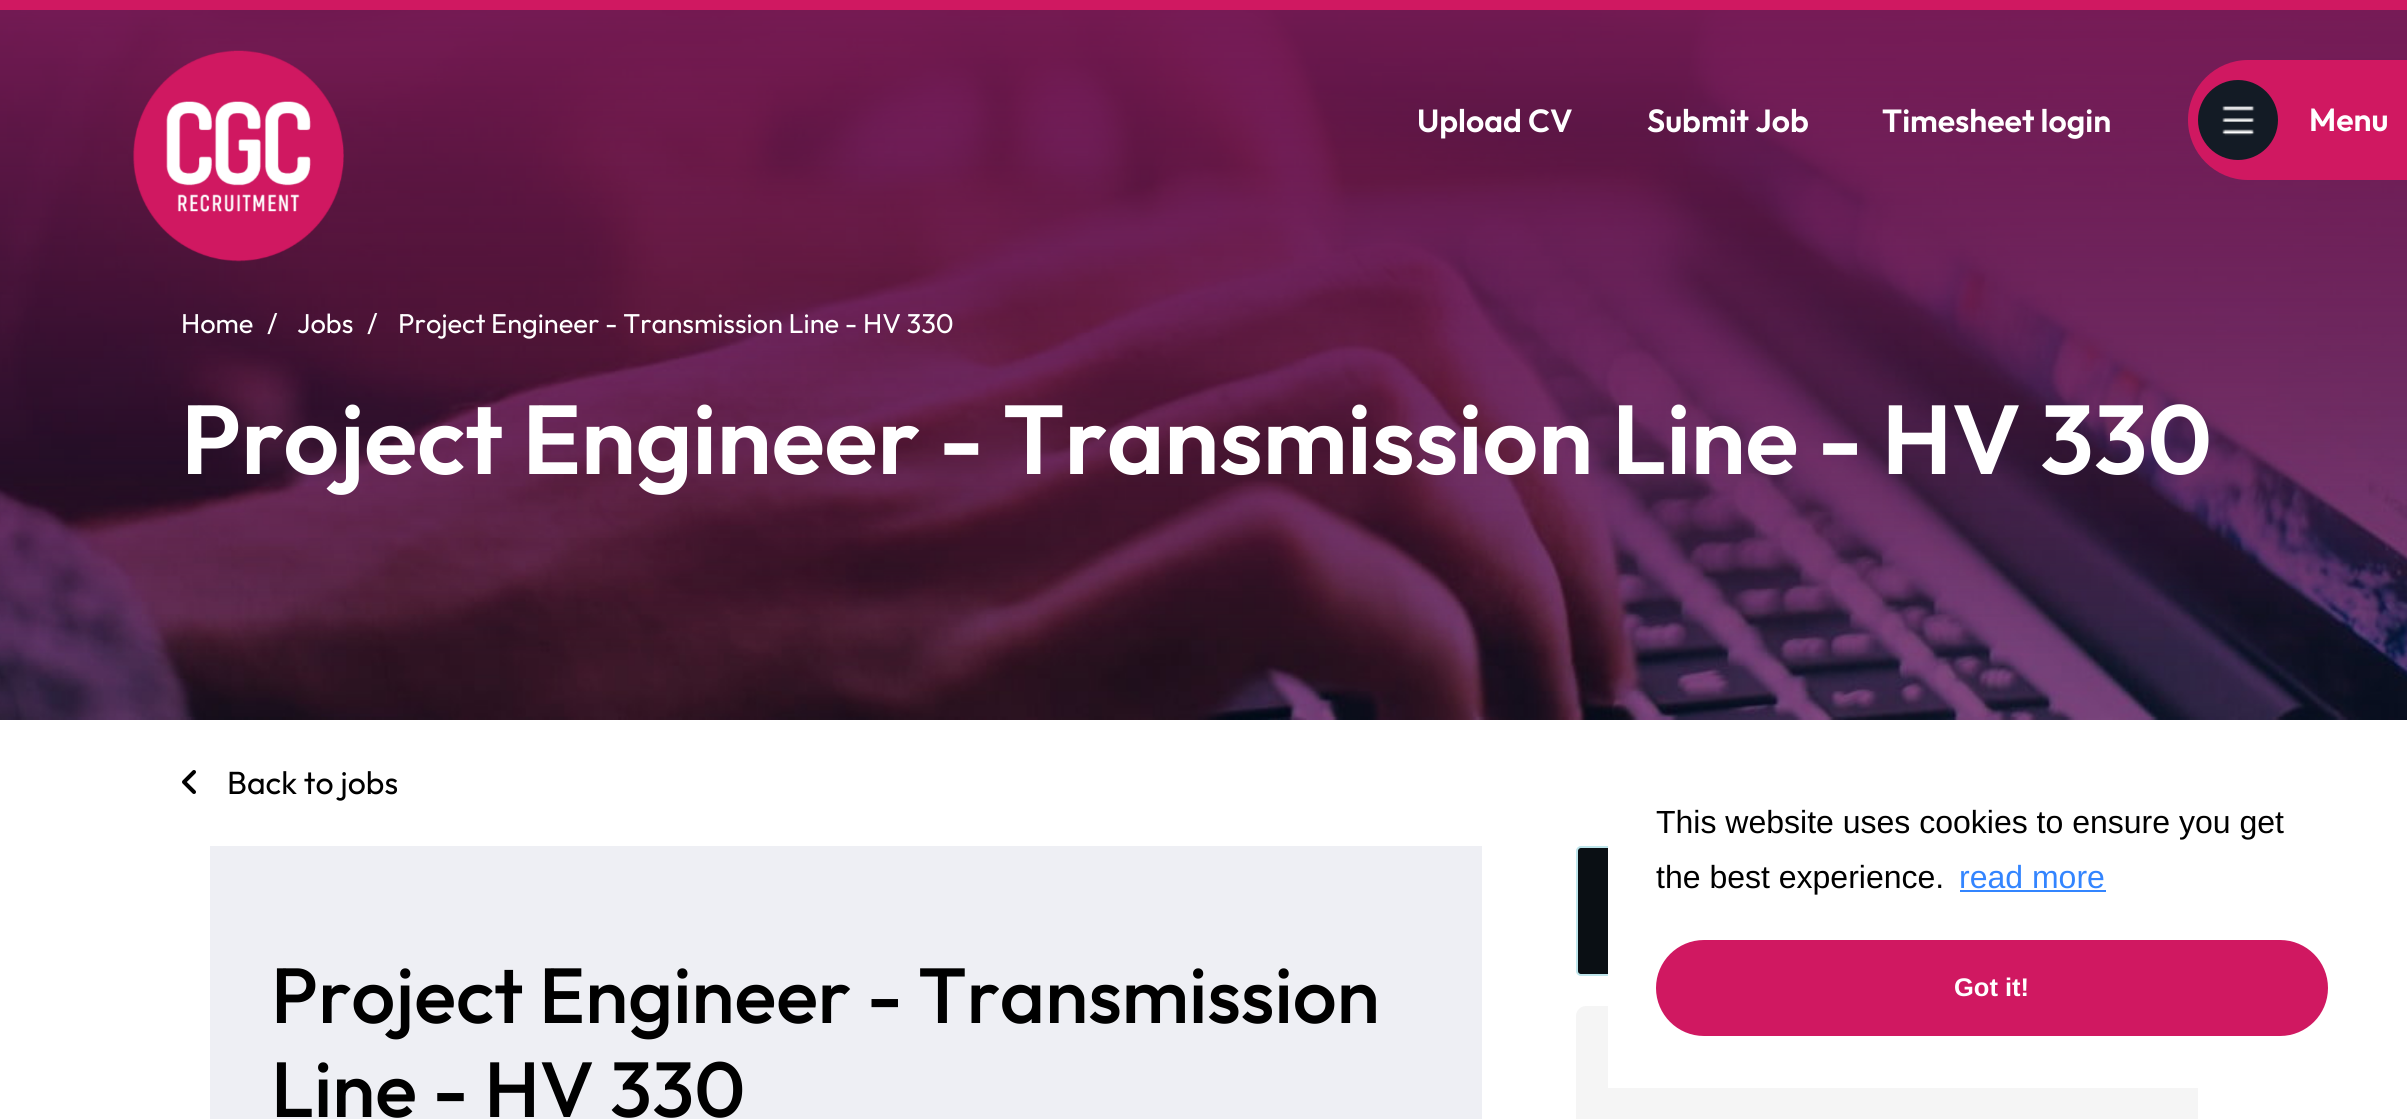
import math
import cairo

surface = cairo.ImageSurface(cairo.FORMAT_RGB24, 2407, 1119)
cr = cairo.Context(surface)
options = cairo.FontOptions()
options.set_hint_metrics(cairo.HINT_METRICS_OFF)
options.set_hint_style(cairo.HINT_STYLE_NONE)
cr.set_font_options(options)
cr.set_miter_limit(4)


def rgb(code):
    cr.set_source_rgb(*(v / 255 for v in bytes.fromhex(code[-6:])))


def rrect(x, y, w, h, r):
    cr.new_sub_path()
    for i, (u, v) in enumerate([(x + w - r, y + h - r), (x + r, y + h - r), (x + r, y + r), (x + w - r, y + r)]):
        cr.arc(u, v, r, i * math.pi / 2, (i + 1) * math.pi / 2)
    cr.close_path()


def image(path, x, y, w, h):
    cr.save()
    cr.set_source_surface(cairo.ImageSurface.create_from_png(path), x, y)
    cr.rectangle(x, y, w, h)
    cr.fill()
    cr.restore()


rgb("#ffffff")
cr.paint()
rgb("#d01861")
cr.rectangle(0, 0, 2407, 10)
cr.fill()
image("img/3.png", 0, 10, 2407, 710)
image("img/1.png", 133, 50, 211, 212)
cr.new_path()
cr.move_to(2248, 60)
cr.line_to(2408, 60)
cr.line_to(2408, 180)
cr.line_to(2248, 180)
cr.curve_to(2215, 180, 2188, 153, 2188, 120)
cr.curve_to(2188, 87, 2215, 60, 2248, 60)
cr.close_path()
cr.fill()
rgb("#131b25")
cr.arc(2238, 120, 40, 0, 2 * math.pi)
cr.fill()
image("img/2.png", 2222, 106, 33, 30)
image("img/4.png", 182, 770, 14, 24)
rgb("#eeeff4")
cr.rectangle(210, 846, 1272, 273)
cr.fill()
rgb("#0a0f14")
rrect(1577, 847, 620, 128, 4)
cr.fill_preserve()
rgb("#bee5eb")
cr.stroke()
rgb("#f5f5f5")
rrect(1576, 1006, 622, 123, 10)
cr.fill()
rgb("#ffffff")
cr.rectangle(1608, 846, 590, 242)
cr.fill()
rgb("#3385ff")
cr.rectangle(1960, 890, 146, 2)
cr.fill()
rgb("#d01861")
rrect(1658, 942, 668, 92, 46)
cr.fill_preserve()
cr.set_line_width(4)
cr.stroke()
cr.select_font_face("Outfit SemiBold")
cr.set_font_size(32)
rgb("#ffffff")
for x, y, s in [
    (1417, 132, "Upload CV"),
    (1647, 132, "Submit Job"),
    (1882, 132, "Timesheet login"),
    (2309, 131, "Menu"),
]:
    cr.move_to(x, y)
    cr.show_text(s)
cr.select_font_face("Outfit")
cr.set_font_size(27.2)
for x, y, s in [
    (181, 333, "Home"),
    (267, 333, "/"),
    (297, 333, "Jobs"),
    (367, 333, "/"),
    (398, 333, "Project Engineer - Transmission Line - HV 330"),
]:
    cr.move_to(x, y)
    cr.show_text(s)
cr.select_font_face("Outfit SemiBold")
cr.set_font_size(97.7)
cr.move_to(181, 474)
cr.show_text("Project Engineer - Transmission Line - HV 330")
cr.select_font_face("Outfit")
cr.set_font_size(32)
rgb("#000000")
cr.move_to(227, 794)
cr.show_text("Back to jobs")
cr.select_font_face("Outfit Medium")
cr.set_font_size(78.1)
cr.move_to(271, 1023)
cr.show_text("Project Engineer - Transmission")
cr.move_to(271, 1117)
cr.show_text("Line - HV 330")
cr.select_font_face("Liberation Sans")
cr.set_font_size(32)
cr.move_to(1656, 833)
cr.show_text("This website uses cookies to ensure you get")
cr.move_to(1656, 888)
cr.show_text("the best experience.")
rgb("#3385ff")
cr.move_to(1959, 888)
cr.show_text("read more")
cr.select_font_face("Liberation Sans", cairo.FONT_SLANT_NORMAL, cairo.FONT_WEIGHT_BOLD)
cr.set_font_size(25.5)
rgb("#ffffff")
cr.move_to(1954, 996)
cr.show_text("Got it!")
surface.write_to_png("page.png")
